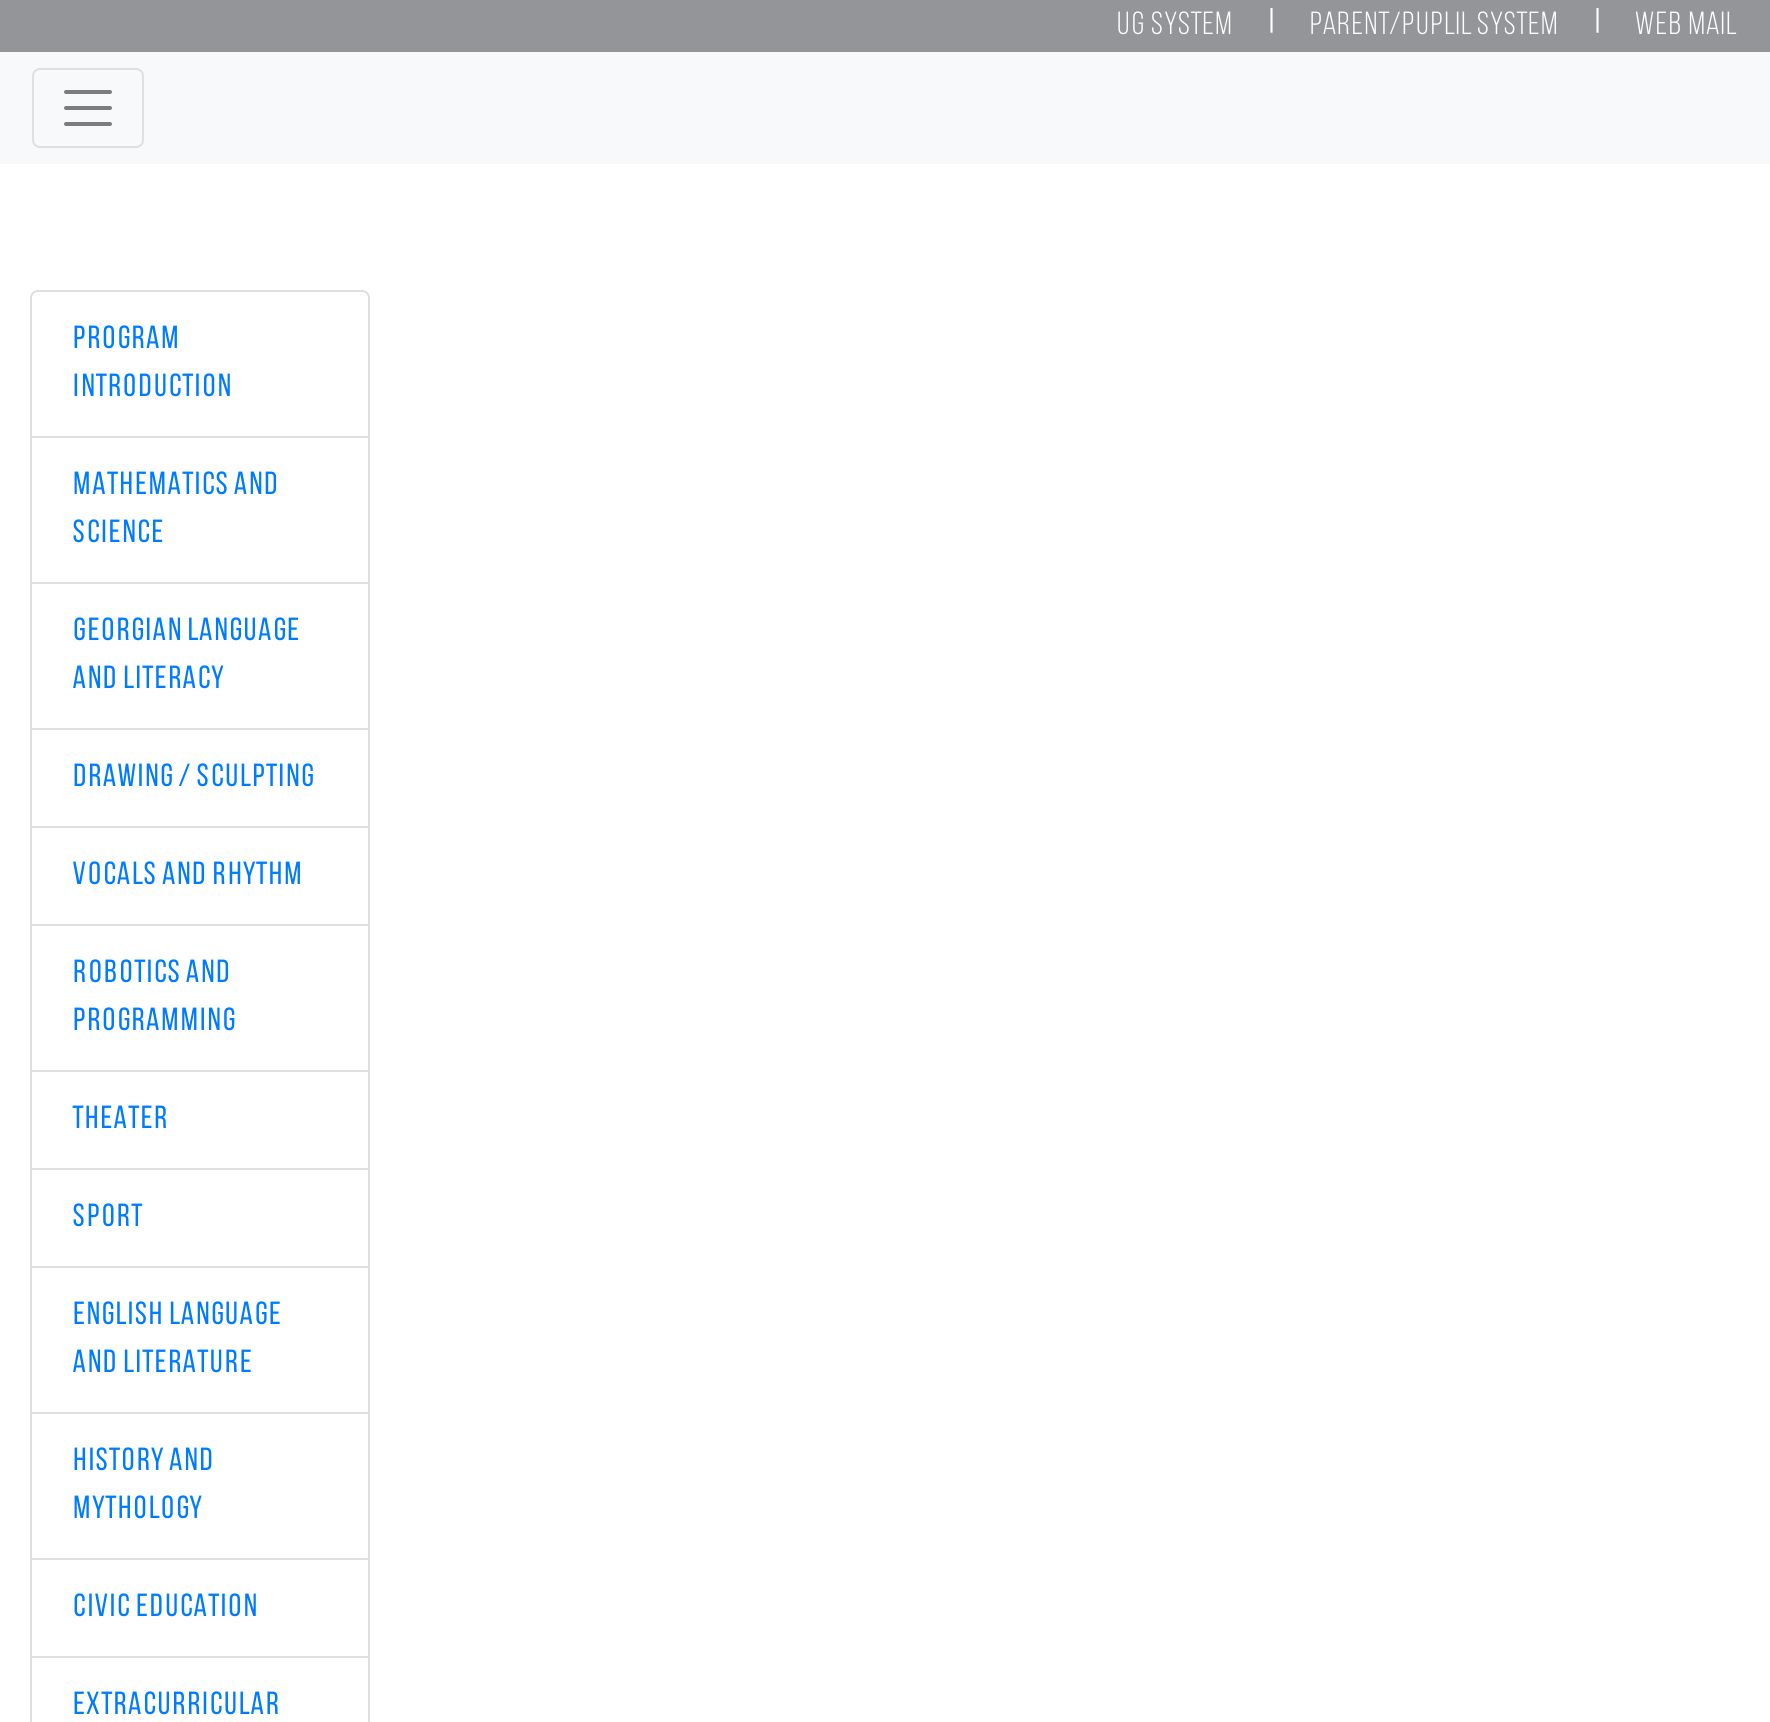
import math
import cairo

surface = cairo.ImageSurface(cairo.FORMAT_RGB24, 1770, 1722)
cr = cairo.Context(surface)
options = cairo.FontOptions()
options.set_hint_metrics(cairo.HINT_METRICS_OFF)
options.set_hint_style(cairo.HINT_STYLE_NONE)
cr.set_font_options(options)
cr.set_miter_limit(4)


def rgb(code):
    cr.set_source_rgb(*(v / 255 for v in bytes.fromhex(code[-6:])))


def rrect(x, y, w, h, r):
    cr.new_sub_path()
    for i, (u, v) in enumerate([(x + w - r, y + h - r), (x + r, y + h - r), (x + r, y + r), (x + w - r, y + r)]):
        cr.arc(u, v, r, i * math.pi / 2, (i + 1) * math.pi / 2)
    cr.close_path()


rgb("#ffffff")
cr.paint()
rgb("#939598")
cr.rectangle(0, 0, 1770, 52)
cr.fill()
rgb("#f8f9fa")
cr.rectangle(0, 52, 1770, 112)
cr.fill()
rrect(33, 69, 110, 78, 7)
rgb("#dfe0e1")
cr.stroke()
cr.new_path()
cr.move_to(66, 92)
cr.line_to(110, 92)
cr.move_to(66, 108)
cr.line_to(110, 108)
cr.move_to(66, 124)
cr.line_to(110, 124)
rgb("#7c7d7d")
cr.set_line_width(4)
cr.set_line_cap(cairo.LINE_CAP_ROUND)
cr.stroke()
cr.new_path()
cr.move_to(38, 291)
cr.line_to(362, 291)
cr.curve_to(366, 291, 369, 294, 369, 298)
cr.line_to(369, 437)
cr.line_to(31, 437)
cr.line_to(31, 298)
cr.curve_to(31, 294, 34, 291, 38, 291)
cr.close_path()
rgb("#dfdfdf")
cr.set_line_width(2)
cr.set_line_cap(cairo.LINE_CAP_BUTT)
cr.stroke()
cr.rectangle(31, 437, 338, 146)
cr.stroke()
cr.rectangle(31, 583, 338, 146)
cr.stroke()
cr.rectangle(31, 729, 338, 98)
cr.stroke()
cr.rectangle(31, 827, 338, 98)
cr.stroke()
cr.rectangle(31, 925, 338, 146)
cr.stroke()
cr.rectangle(31, 1071, 338, 98)
cr.stroke()
cr.rectangle(31, 1169, 338, 98)
cr.stroke()
cr.rectangle(31, 1267, 338, 146)
cr.stroke()
cr.rectangle(31, 1413, 338, 146)
cr.stroke()
cr.rectangle(31, 1559, 338, 98)
cr.stroke()
cr.rectangle(31, 1657, 338, 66)
cr.stroke()
cr.select_font_face("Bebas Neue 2")
cr.set_font_size(32)
rgb("#ffffff")
cr.move_to(1116, 34)
cr.show_text("UG System")
cr.select_font_face("Bebas Neue", cairo.FONT_SLANT_NORMAL, cairo.FONT_WEIGHT_BOLD)
cr.move_to(1267, 32)
cr.show_text("|")
cr.select_font_face("Bebas Neue 2")
cr.move_to(1309, 34)
cr.show_text("Parent/Puplil System")
cr.select_font_face("Bebas Neue", cairo.FONT_SLANT_NORMAL, cairo.FONT_WEIGHT_BOLD)
cr.move_to(1593, 32)
cr.show_text("|")
cr.select_font_face("Bebas Neue 2")
cr.move_to(1635, 34)
cr.show_text("Web Mail")
cr.select_font_face("Bebas Neue")
rgb("#007bff")
for x, y, s in [
    (72, 348, "Program"),
    (72, 396, "Introduction"),
    (72, 494, "Mathematics and"),
    (72, 542, "Science"),
    (72, 640, "Georgian Language"),
    (72, 688, "and Literacy"),
    (72, 786, "Drawing / Sculpting"),
    (72, 884, "Vocals and Rhythm"),
    (72, 982, "Robotics and"),
    (72, 1030, "Programming"),
    (72, 1128, "Theater"),
    (72, 1226, "Sport"),
    (72, 1324, "English Language"),
    (72, 1372, "and Literature"),
    (72, 1470, "History and"),
    (72, 1518, "Mythology"),
    (72, 1616, "Civic Education"),
    (72, 1714, "Extracurricular"),
]:
    cr.move_to(x, y)
    cr.show_text(s)
surface.write_to_png("page.png")
